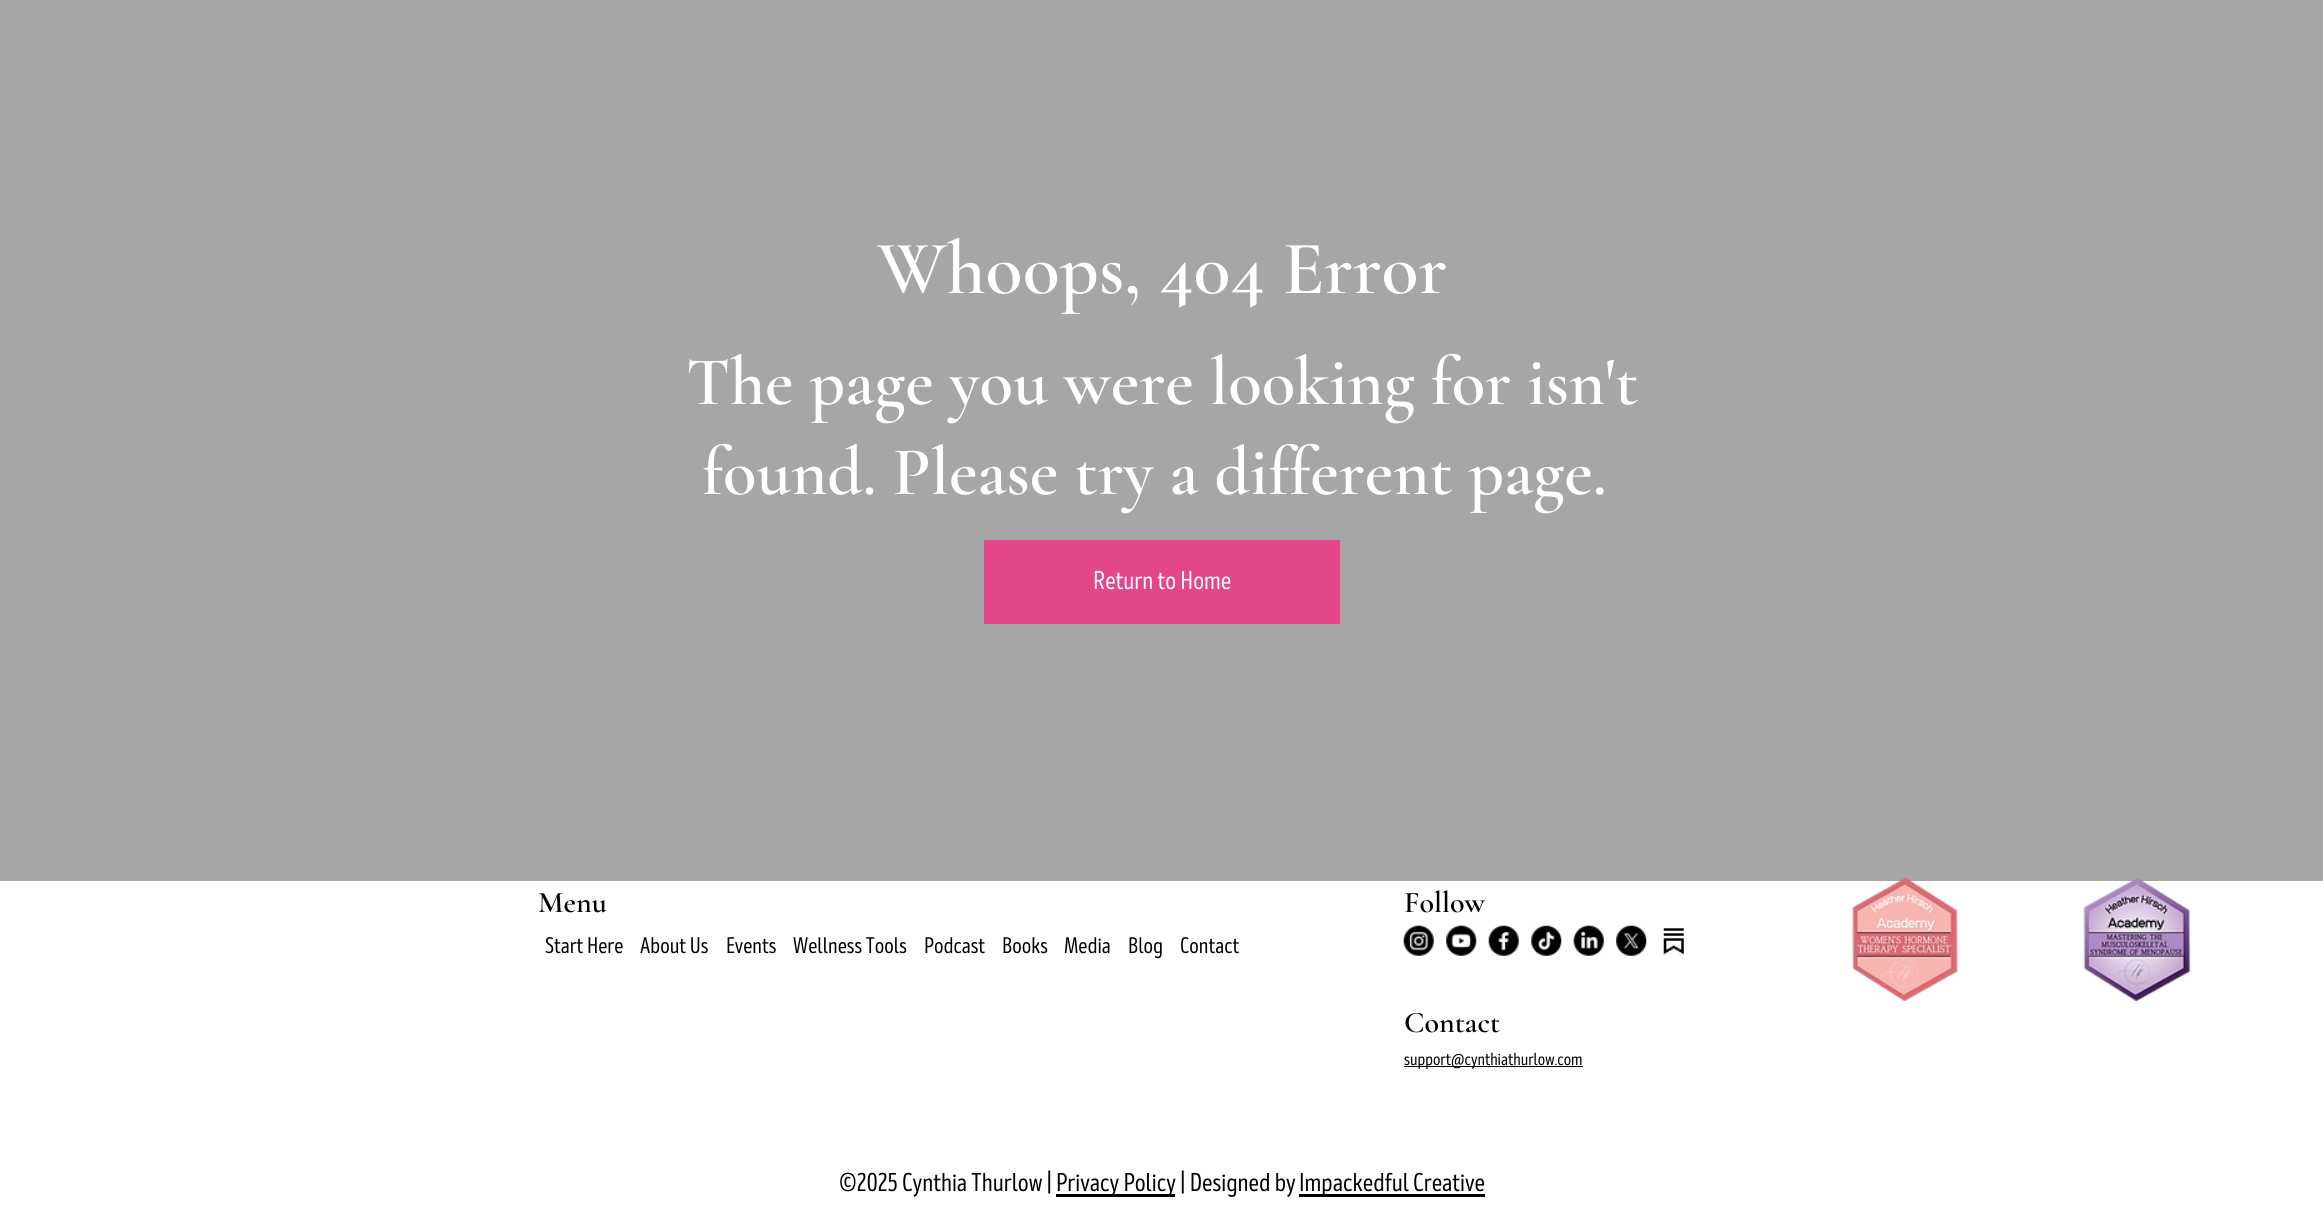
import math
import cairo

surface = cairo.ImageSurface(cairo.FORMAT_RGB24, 2323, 1224)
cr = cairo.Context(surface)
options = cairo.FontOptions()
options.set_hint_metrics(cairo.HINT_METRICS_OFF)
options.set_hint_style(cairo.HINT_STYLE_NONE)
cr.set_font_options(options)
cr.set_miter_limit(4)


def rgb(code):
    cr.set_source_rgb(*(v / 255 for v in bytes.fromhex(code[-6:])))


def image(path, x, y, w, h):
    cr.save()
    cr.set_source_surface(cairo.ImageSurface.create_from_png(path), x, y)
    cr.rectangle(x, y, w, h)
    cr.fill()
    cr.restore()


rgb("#ffffff")
cr.paint()
rgb("#a6a6a6")
cr.rectangle(0, 0, 2323, 881)
cr.fill()
rgb("#e4468a")
cr.rectangle(984, 540, 356, 84)
cr.fill()
image("img/1.png", 1403, 925, 31, 31)
image("img/2.png", 1446, 925, 31, 31)
image("img/3.png", 1488, 925, 31, 31)
image("img/4.png", 1531, 925, 31, 31)
image("img/5.png", 1573, 925, 31, 31)
image("img/6.png", 1616, 925, 31, 31)
image("img/7.png", 1663, 928, 21, 28)
for x, y, w, h, color in [
    (1404, 1066, 179, 1, "#000000"),
    (1056, 1194, 119, 3, "#000000"),
    (1299, 1194, 186, 3, "#000000"),
]:
    rgb(color)
    cr.rectangle(x, y, w, h)
    cr.fill()
image("img/8.png", 1852, 877, 106, 125)
image("img/9.png", 2083, 878, 108, 124)
cr.select_font_face("Cormorant Garamond SemiBold")
cr.set_font_size(76.25)
rgb("#ffffff")
cr.move_to(877, 293)
cr.show_text("Whoops, 404 Error")
cr.set_font_size(69)
cr.move_to(686, 404)
cr.show_text("The page you were looking for isn't")
cr.move_to(702, 494)
cr.show_text("found. Please try a different page.")
cr.select_font_face("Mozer")
cr.set_font_size(25.75)
cr.move_to(1093, 589)
cr.show_text("Return to Home")
cr.select_font_face("Cormorant Garamond SemiBold")
cr.set_font_size(30)
rgb("#000000")
cr.move_to(1404, 912)
cr.show_text("Follow")
cr.move_to(1404, 1032)
cr.show_text("Contact")
cr.select_font_face("Mozer")
cr.set_font_size(17.5)
cr.move_to(1404, 1065)
cr.show_text("support@cynthiathurlow.com")
cr.set_font_size(25.75)
for x, y, s in [
    (839, 1191, "©2025 Cynthia Thurlow |"),
    (1056, 1191, "Privacy Policy | Designed by"),
    (1299, 1191, "Impackedful Creative"),
]:
    cr.move_to(x, y)
    cr.show_text(s)
cr.select_font_face("Cormorant Garamond SemiBold")
cr.set_font_size(30)
cr.move_to(538, 912)
cr.show_text("Menu")
cr.select_font_face("Mozer")
cr.set_font_size(22.5)
for x, y, s in [
    (545, 953, "Start Here"),
    (640, 953, "About Us"),
    (726, 953, "Events"),
    (793, 953, "Wellness Tools"),
    (924, 953, "Podcast"),
    (1002, 953, "Books"),
    (1064, 953, "Media"),
    (1128, 953, "Blog"),
    (1180, 953, "Contact"),
]:
    cr.move_to(x, y)
    cr.show_text(s)
surface.write_to_png("page.png")
